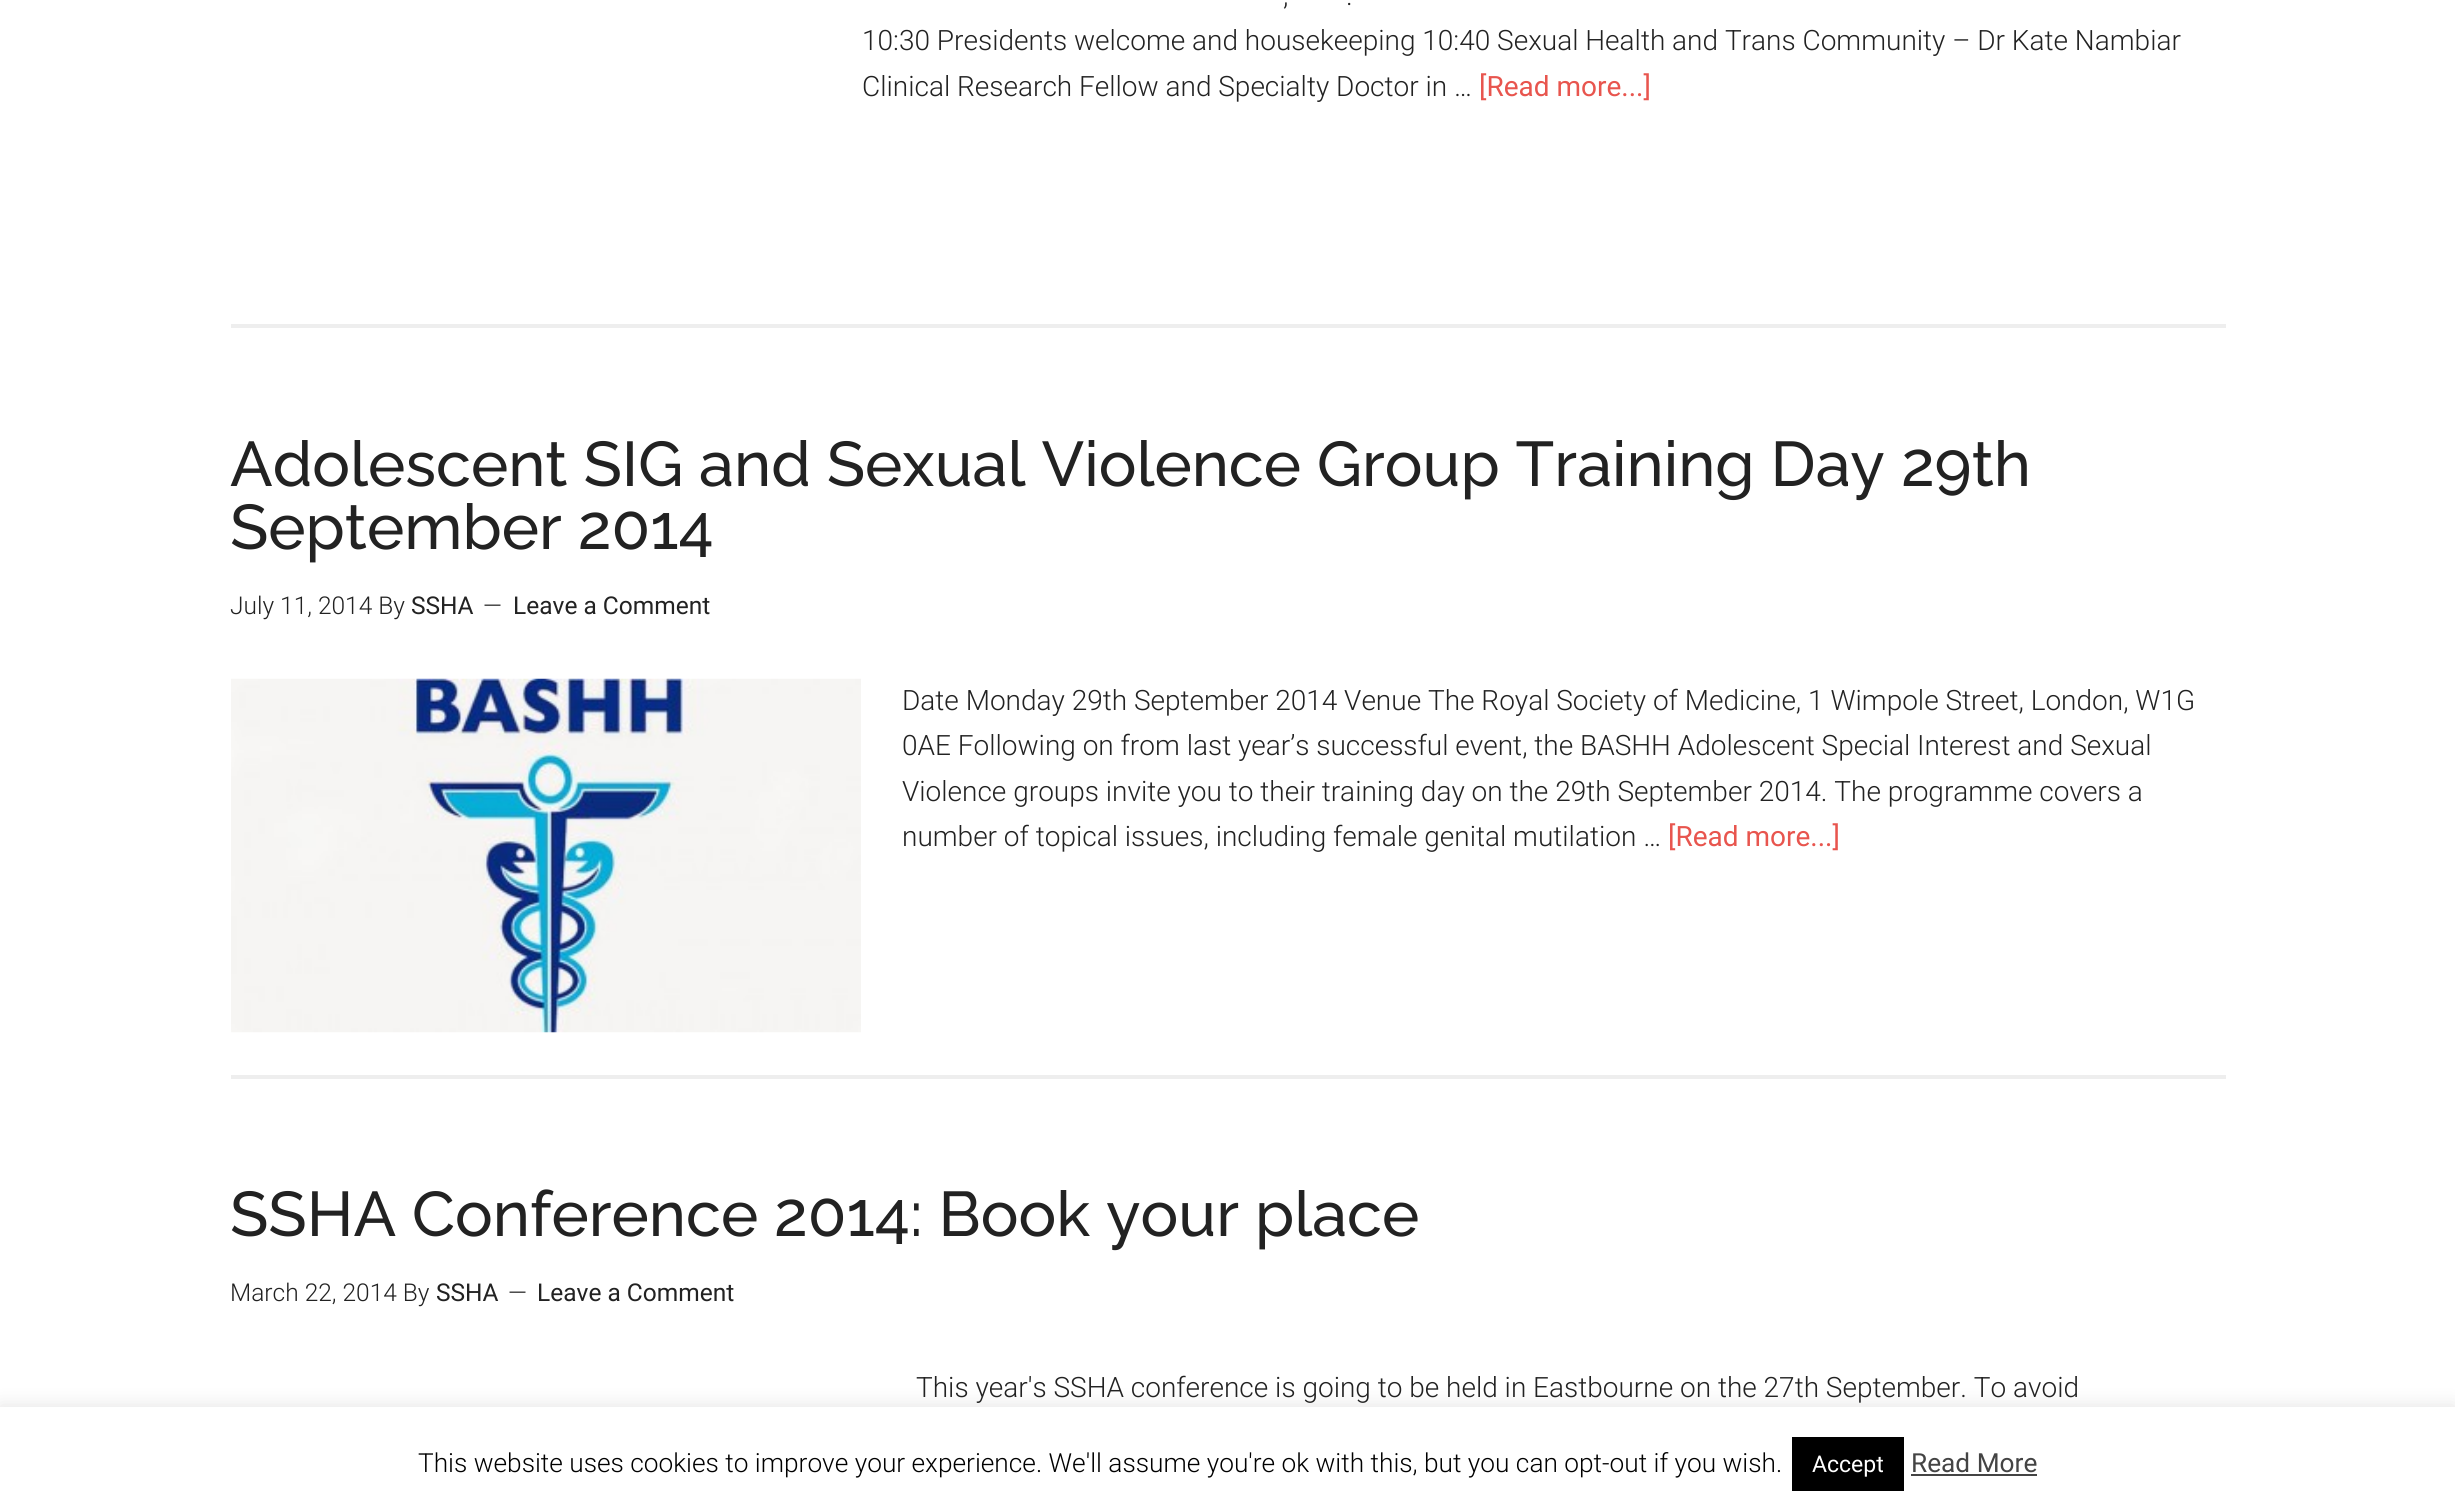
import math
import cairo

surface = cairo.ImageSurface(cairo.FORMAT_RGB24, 2455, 1512)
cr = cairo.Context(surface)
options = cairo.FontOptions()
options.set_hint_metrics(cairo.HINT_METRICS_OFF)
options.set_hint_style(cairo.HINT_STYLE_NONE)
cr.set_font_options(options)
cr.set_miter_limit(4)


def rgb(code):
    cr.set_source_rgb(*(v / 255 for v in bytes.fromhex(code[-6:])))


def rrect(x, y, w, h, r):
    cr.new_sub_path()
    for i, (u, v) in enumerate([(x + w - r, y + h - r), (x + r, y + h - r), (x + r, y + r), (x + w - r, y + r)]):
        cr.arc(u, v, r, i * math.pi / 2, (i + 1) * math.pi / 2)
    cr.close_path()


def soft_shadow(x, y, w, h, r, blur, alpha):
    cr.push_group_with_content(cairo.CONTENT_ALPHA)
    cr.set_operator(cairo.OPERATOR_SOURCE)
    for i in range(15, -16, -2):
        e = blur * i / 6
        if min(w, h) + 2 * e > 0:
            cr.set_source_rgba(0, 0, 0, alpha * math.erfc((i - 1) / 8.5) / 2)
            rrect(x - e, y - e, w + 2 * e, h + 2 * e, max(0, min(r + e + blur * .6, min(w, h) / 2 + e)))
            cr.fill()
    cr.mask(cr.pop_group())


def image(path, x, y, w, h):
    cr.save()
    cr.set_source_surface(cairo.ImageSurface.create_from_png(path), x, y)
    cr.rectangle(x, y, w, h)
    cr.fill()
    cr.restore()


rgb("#ffffff")
cr.paint()
rgb("#eeeeee")
cr.rectangle(231, 324, 1995, 4)
cr.fill()
cr.rectangle(231, 1075, 1995, 4)
cr.fill()
image("img/1.png", 231, 678, 630, 355)
rgb("#acabab")
soft_shadow(0, 1405, 2455, 105, 0, 9, 0.3)
for x, y, w, h, color in [
    (0, 1407, 2455, 105, "#ffffff"),
    (1792, 1437, 112, 54, "#000000"),
    (1911, 1474, 126, 2, "#444444"),
]:
    rgb(color)
    cr.rectangle(x, y, w, h)
    cr.fill()
cr.select_font_face("Roboto Light")
cr.set_font_size(28)
rgb("#222222")
for x, y, s in [
    (1283, 5, ","),
    (1346, 5, "."),
    (862, 50, "10:30 Presidents welcome and housekeeping 10:40 Sexual Health and Trans Community – Dr Kate Nambiar"),
    (862, 96, "Clinical Research Fellow and Specialty Doctor in …"),
]:
    cr.move_to(x, y)
    cr.show_text(s)
cr.select_font_face("Roboto")
rgb("#e8554e")
cr.move_to(1479, 96)
cr.show_text("[Read more...]")
cr.select_font_face("Raleway Medium")
cr.set_font_size(63)
rgb("#222222")
cr.move_to(230, 486)
cr.show_text("Adolescent SIG and Sexual Violence Group Training Day 29th")
cr.move_to(230, 549)
cr.show_text("September 2014")
cr.select_font_face("Roboto Light")
cr.set_font_size(24.5)
cr.move_to(230, 614)
cr.show_text("July 11, 2014 By")
cr.select_font_face("Roboto")
cr.move_to(411, 614)
cr.show_text("SSHA")
cr.select_font_face("Roboto Light")
cr.move_to(483, 614)
cr.show_text("—")
cr.select_font_face("Roboto")
cr.move_to(513, 614)
cr.show_text("Leave a Comment")
cr.select_font_face("Roboto Light")
cr.set_font_size(28)
for x, y, s in [
    (902, 710, "Date Monday 29th September 2014 Venue The Royal Society of Medicine, 1 Wimpole Street, London, W1G"),
    (902, 755, "0AE Following on from last year’s successful event, the BASHH Adolescent Special Interest and Sexual"),
    (902, 801, "Violence groups invite you to their training day on the 29th September 2014. The programme covers a"),
    (902, 846, "number of topical issues, including female genital mutilation …"),
]:
    cr.move_to(x, y)
    cr.show_text(s)
cr.select_font_face("Roboto")
rgb("#e8554e")
cr.move_to(1668, 846)
cr.show_text("[Read more...]")
cr.select_font_face("Raleway Medium")
cr.set_font_size(63)
rgb("#222222")
cr.move_to(230, 1236)
cr.show_text("SSHA Conference 2014: Book your place")
cr.select_font_face("Roboto Light")
cr.set_font_size(24.5)
cr.move_to(230, 1301)
cr.show_text("March 22, 2014 By")
cr.select_font_face("Roboto")
cr.move_to(436, 1301)
cr.show_text("SSHA")
cr.select_font_face("Roboto Light")
cr.move_to(508, 1301)
cr.show_text("—")
cr.select_font_face("Roboto")
cr.move_to(537, 1301)
cr.show_text("Leave a Comment")
cr.select_font_face("Roboto Light")
cr.set_font_size(28)
cr.move_to(916, 1397)
cr.show_text("This year's SSHA conference is going to be held in Eastbourne on the 27th September. To avoid")
cr.set_font_size(26.25)
rgb("#000000")
cr.move_to(418, 1472)
cr.show_text("This website uses cookies to improve your experience. We'll assume you're ok with this, but you can opt-out if you wish.")
cr.select_font_face("Roboto")
cr.set_font_size(23)
rgb("#ffffff")
cr.move_to(1812, 1472)
cr.show_text("Accept")
cr.set_font_size(26.25)
rgb("#444444")
cr.move_to(1911, 1472)
cr.show_text("Read More")
surface.write_to_png("page.png")
